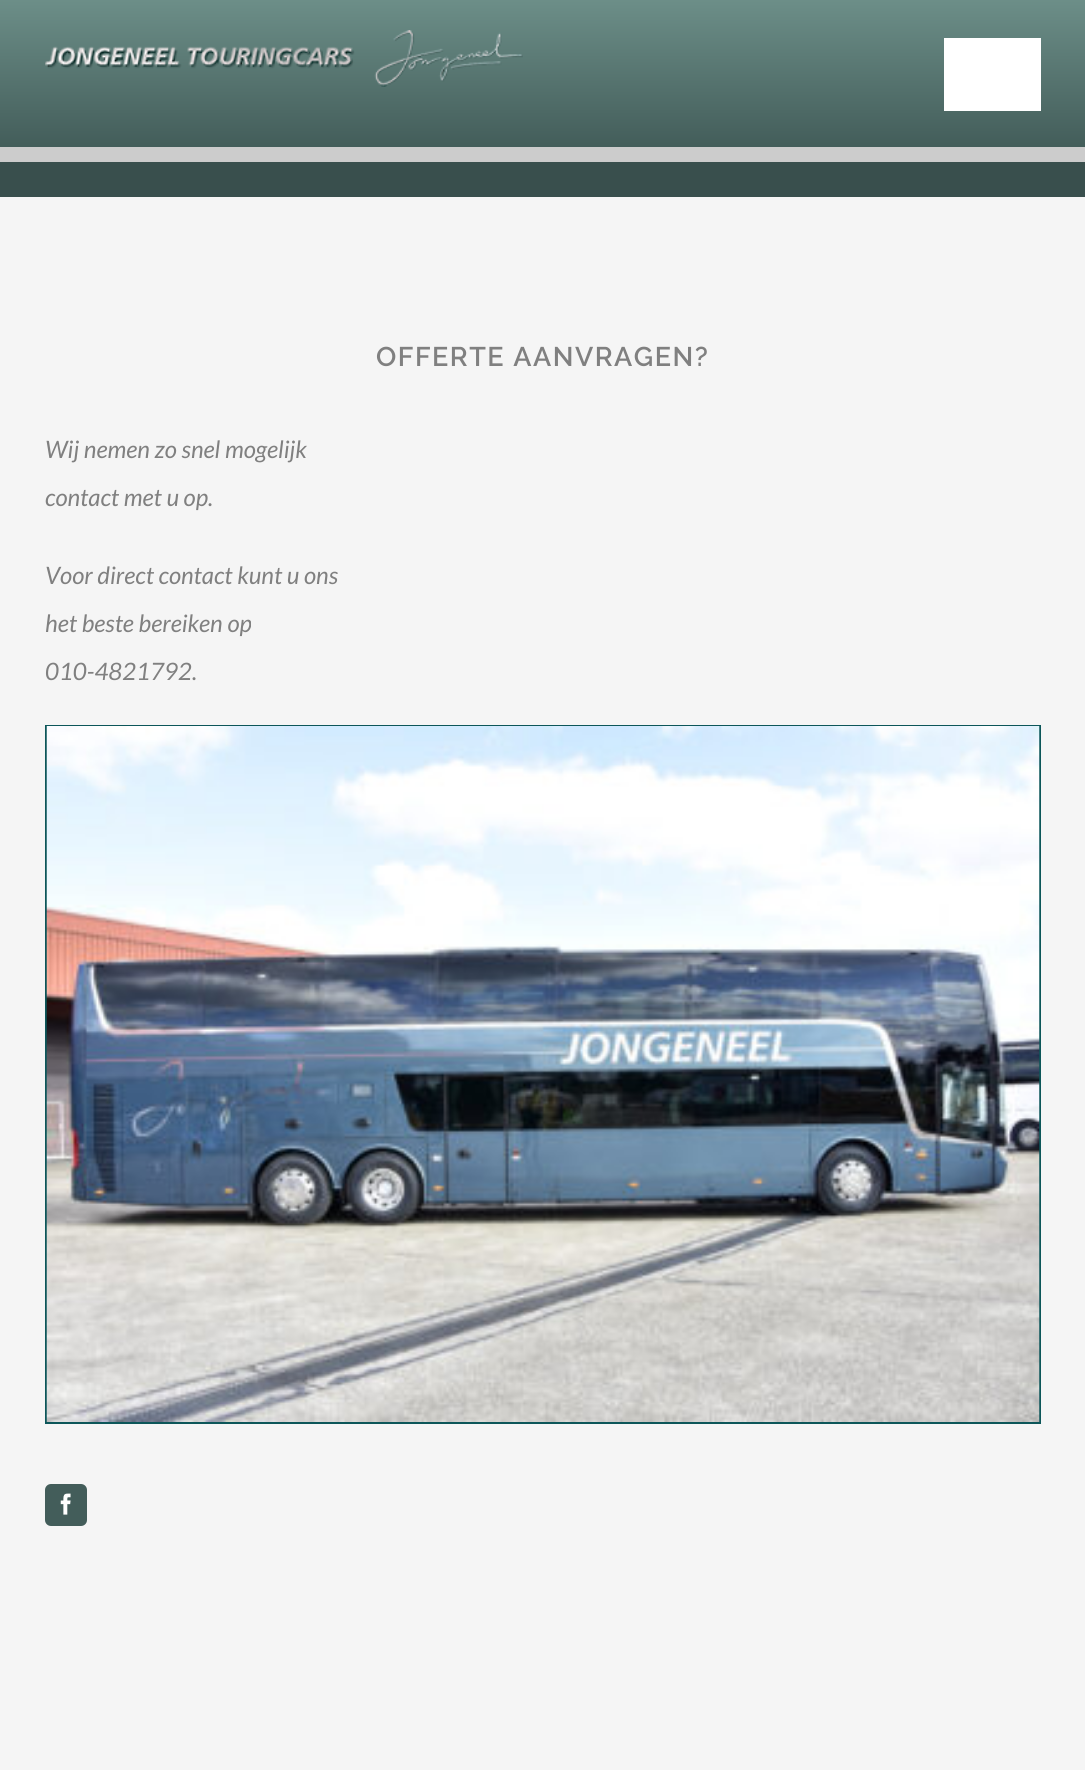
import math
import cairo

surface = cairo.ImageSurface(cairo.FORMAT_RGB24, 1085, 1770)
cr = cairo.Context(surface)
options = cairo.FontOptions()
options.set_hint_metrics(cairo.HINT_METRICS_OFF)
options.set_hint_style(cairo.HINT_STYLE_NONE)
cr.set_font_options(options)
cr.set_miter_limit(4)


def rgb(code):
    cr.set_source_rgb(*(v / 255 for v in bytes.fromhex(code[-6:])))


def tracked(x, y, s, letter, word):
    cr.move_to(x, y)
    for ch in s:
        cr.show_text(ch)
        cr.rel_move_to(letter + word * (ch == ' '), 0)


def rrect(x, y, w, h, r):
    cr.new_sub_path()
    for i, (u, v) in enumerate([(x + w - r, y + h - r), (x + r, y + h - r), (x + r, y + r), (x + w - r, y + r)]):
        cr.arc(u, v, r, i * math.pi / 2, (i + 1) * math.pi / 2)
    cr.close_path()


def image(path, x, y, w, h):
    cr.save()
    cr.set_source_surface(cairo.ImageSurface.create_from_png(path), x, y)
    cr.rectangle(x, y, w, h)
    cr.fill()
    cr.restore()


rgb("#f5f5f5")
cr.paint()
gradient = cairo.LinearGradient(543, 0, 543, 147)
gradient.add_color_stop_rgba(0, 0.424, 0.557, 0.533, 1)
gradient.add_color_stop_rgba(1, 0.263, 0.365, 0.353, 1)
cr.set_source(gradient)
cr.rectangle(0, 0, 1085, 147)
cr.fill()
image("img/1.png", 45, 30, 478, 57)
for x, y, w, h, color in [
    (944, 38, 97, 73, "#ffffff"),
    (0, 147, 1085, 15, "#cccccc"),
    (0, 162, 1085, 35, "#394f4d"),
]:
    rgb(color)
    cr.rectangle(x, y, w, h)
    cr.fill()
cr.rectangle(46, 726, 994, 697)
rgb("#0c5659")
cr.stroke()
image("img/2.png", 46, 726, 994, 696)
rgb("#435d5a")
rrect(45, 1484, 42, 42, 6)
cr.fill()
image("img/3.png", 60, 1493, 11, 22)
cr.select_font_face("Raleway SemiBold")
cr.set_font_size(27)
rgb("#808080")
tracked(376, 366, "OFFERTE AANVRAGEN?", 1.5, 0)
cr.select_font_face("Lato", cairo.FONT_SLANT_ITALIC)
cr.set_font_size(24)
for x, y, s in [
    (45, 458, "Wij nemen zo snel mogelijk"),
    (45, 506, "contact met u op."),
    (45, 584, "Voor direct contact kunt u ons"),
    (45, 632, "het beste bereiken op"),
    (45, 680, "010-4821792."),
]:
    cr.move_to(x, y)
    cr.show_text(s)
surface.write_to_png("page.png")
